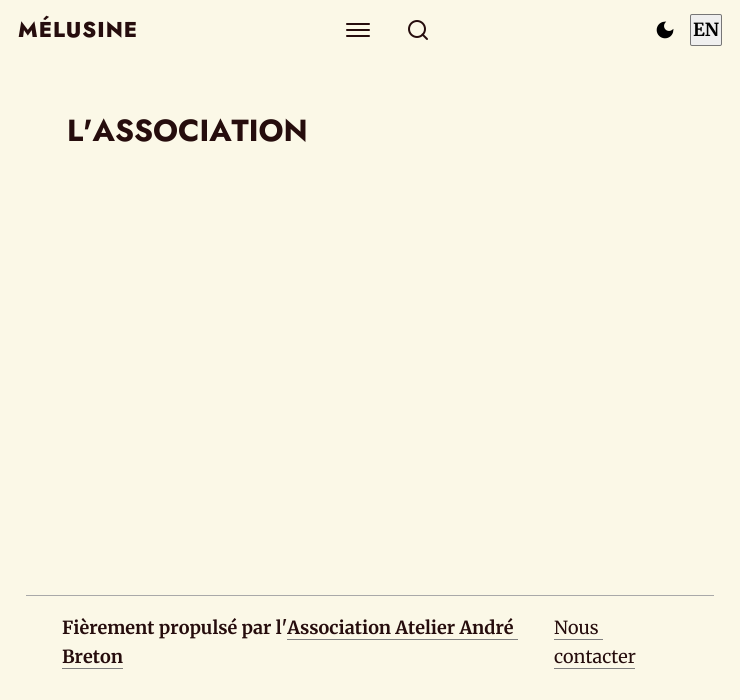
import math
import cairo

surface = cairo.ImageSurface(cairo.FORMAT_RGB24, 740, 700)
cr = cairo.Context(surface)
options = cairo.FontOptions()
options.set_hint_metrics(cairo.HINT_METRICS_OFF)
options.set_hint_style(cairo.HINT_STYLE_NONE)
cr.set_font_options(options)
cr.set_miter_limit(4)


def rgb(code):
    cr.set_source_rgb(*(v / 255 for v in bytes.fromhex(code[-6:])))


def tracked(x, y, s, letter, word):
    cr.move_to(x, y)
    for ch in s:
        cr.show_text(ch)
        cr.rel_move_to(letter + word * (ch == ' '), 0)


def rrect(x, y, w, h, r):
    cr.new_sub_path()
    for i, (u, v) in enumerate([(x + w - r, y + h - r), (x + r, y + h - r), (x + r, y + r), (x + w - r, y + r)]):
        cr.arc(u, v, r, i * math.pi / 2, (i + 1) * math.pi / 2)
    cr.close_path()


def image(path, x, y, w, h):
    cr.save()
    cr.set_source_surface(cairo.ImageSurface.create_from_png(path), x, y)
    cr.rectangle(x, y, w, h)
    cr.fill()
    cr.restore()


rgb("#fbf8e7")
cr.paint()
rgb("#260d0d")
rrect(346, 23, 24, 2, 1)
cr.fill()
rrect(346, 29, 24, 2, 1)
cr.fill()
rrect(346, 35, 24, 2, 1)
cr.fill()
cr.arc(417, 29, 8, 0, 2 * math.pi)
cr.stroke()
cr.new_path()
cr.move_to(427, 39)
cr.line_to(422.5, 34.5)
cr.set_line_cap(cairo.LINE_CAP_ROUND)
cr.set_line_join(cairo.LINE_JOIN_ROUND)
cr.stroke()
image("img/1.png", 656, 21, 18, 18)
rgb("#efefef")
rrect(690.5, 14.5, 31, 31, 1.5)
cr.fill_preserve()
rgb("#767676")
cr.set_line_width(1)
cr.set_line_cap(cairo.LINE_CAP_BUTT)
cr.set_line_join(cairo.LINE_JOIN_MITER)
cr.stroke()
for x, y, w, h, color in [
    (26, 595, 688, 1, "#a9a9a9"),
    (287, 639, 231, 1, "#808080"),
    (62, 668, 61, 1, "#808080"),
    (554, 639, 49, 1, "#808080"),
    (554, 668, 81, 1, "#808080"),
]:
    rgb(color)
    cr.rectangle(x, y, w, h)
    cr.fill()
cr.select_font_face("Jost ExtraBold")
cr.set_font_size(21.5)
rgb("#260d0d")
tracked(18, 37, "MÉLUSINE", 1, 0)
cr.select_font_face("Merriweather", cairo.FONT_SLANT_NORMAL, cairo.FONT_WEIGHT_BOLD)
cr.set_font_size(18)
rgb("#000000")
cr.move_to(693, 36)
cr.show_text("EN")
cr.select_font_face("Jost", cairo.FONT_SLANT_NORMAL, cairo.FONT_WEIGHT_BOLD)
cr.set_font_size(30.5)
rgb("#260d0d")
cr.move_to(67, 141)
cr.show_text("L'ASSOCIATION")
cr.select_font_face("Merriweather", cairo.FONT_SLANT_NORMAL, cairo.FONT_WEIGHT_BOLD)
cr.set_font_size(18)
cr.move_to(62, 634)
cr.show_text("Fièrement propulsé par l'Association Atelier André")
cr.move_to(62, 663)
cr.show_text("Breton")
cr.select_font_face("Merriweather")
cr.move_to(554, 634)
cr.show_text("Nous")
cr.move_to(554, 663)
cr.show_text("contacter")
surface.write_to_png("page.png")
